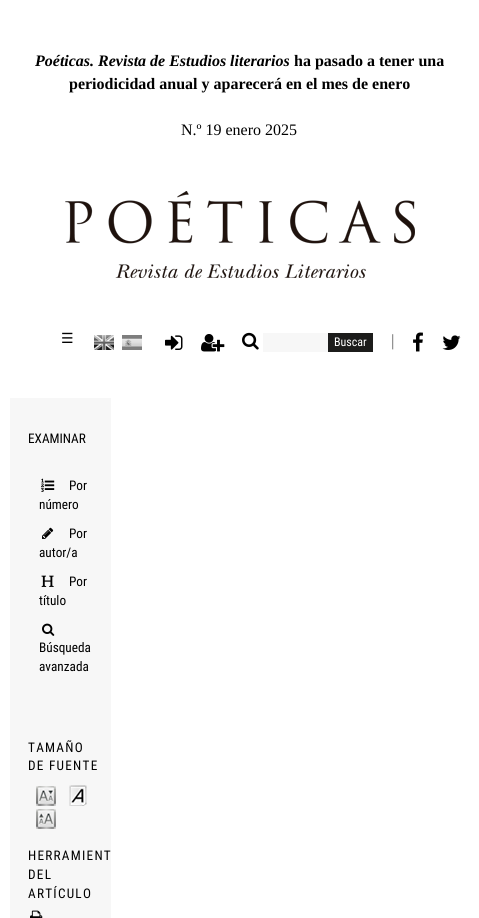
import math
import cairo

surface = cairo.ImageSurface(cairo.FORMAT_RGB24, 479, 918)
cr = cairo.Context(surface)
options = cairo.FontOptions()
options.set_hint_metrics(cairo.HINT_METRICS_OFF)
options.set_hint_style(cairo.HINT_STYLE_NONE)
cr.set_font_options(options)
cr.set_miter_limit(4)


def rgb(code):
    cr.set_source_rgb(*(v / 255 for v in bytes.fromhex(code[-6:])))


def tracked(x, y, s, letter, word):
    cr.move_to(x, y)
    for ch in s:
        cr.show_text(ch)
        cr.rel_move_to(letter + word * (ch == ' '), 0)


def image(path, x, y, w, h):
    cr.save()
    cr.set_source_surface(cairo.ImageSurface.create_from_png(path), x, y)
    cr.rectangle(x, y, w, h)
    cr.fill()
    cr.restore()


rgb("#ffffff")
cr.paint()
image("img/1.png", 65, 191, 350, 87)
image("img/2.png", 94, 335, 20, 15)
image("img/3.png", 122, 335, 20, 15)
image("img/4.png", 165, 335, 18, 15)
image("img/5.png", 201, 334, 24, 18)
image("img/6.png", 242, 332, 17, 18)
rgb("#f7f7f7")
cr.rectangle(263, 333, 65, 19)
cr.fill()
rgb("#1c1c1b")
cr.rectangle(328, 333, 45, 19)
cr.fill()
image("img/7.png", 413, 332, 10, 20)
image("img/8.png", 442, 335, 19, 15)
rgb("#f7f7f7")
cr.rectangle(10, 398, 101, 520)
cr.fill()
image("img/9.png", 41, 478, 14, 14)
image("img/10.png", 42, 527, 12, 12)
image("img/11.png", 41, 575, 13, 12)
image("img/12.png", 42, 623, 13, 13)
image("img/13.png", 36, 786, 20, 20)
image("img/14.png", 69, 785, 18, 21)
image("img/15.png", 36, 809, 20, 20)
image("img/16.png", 30, 910, 13, 8)
cr.select_font_face("Liberation Serif", cairo.FONT_SLANT_ITALIC, cairo.FONT_WEIGHT_BOLD)
cr.set_font_size(16)
rgb("#000000")
cr.move_to(35, 66)
cr.show_text("Poéticas. Revista de Estudios literarios")
cr.select_font_face("Liberation Serif", cairo.FONT_SLANT_NORMAL, cairo.FONT_WEIGHT_BOLD)
cr.move_to(294, 66)
cr.show_text("ha pasado a tener una")
cr.move_to(69, 89)
cr.show_text("periodicidad anual y aparecerá en el mes de enero")
cr.select_font_face("Liberation Serif")
cr.move_to(181, 135)
cr.show_text("N.º 19 enero 2025")
cr.select_font_face("DejaVu Sans")
cr.set_font_size(14)
cr.move_to(61, 343)
cr.show_text("☰")
cr.select_font_face("Roboto Condensed")
cr.set_font_size(12)
rgb("#ffffff")
cr.move_to(334, 346)
cr.show_text("Buscar")
cr.select_font_face("Roboto Condensed Thin")
cr.set_font_size(18)
rgb("#000000")
cr.move_to(391, 347)
cr.show_text("|")
cr.select_font_face("Roboto Condensed")
cr.set_font_size(13.25)
for x, y, s in [
    (28, 443, "EXAMINAR"),
    (69, 490, "Por"),
    (39, 509, "número"),
    (69, 538, "Por"),
    (39, 557, "autor/a"),
    (69, 586, "Por"),
    (39, 605, "título"),
    (39, 652, "Búsqueda"),
    (39, 671, "avanzada"),
]:
    cr.move_to(x, y)
    cr.show_text(s)
for x, y, s in [
    (28, 752, "TAMAÑO"),
    (28, 770, "DE FUENTE"),
    (28, 860, "HERRAMIENT"),
    (28, 879, "DEL"),
    (28, 898, "ARTÍCULO"),
]:
    tracked(x, y, s, 1.25, 0)
surface.write_to_png("page.png")
